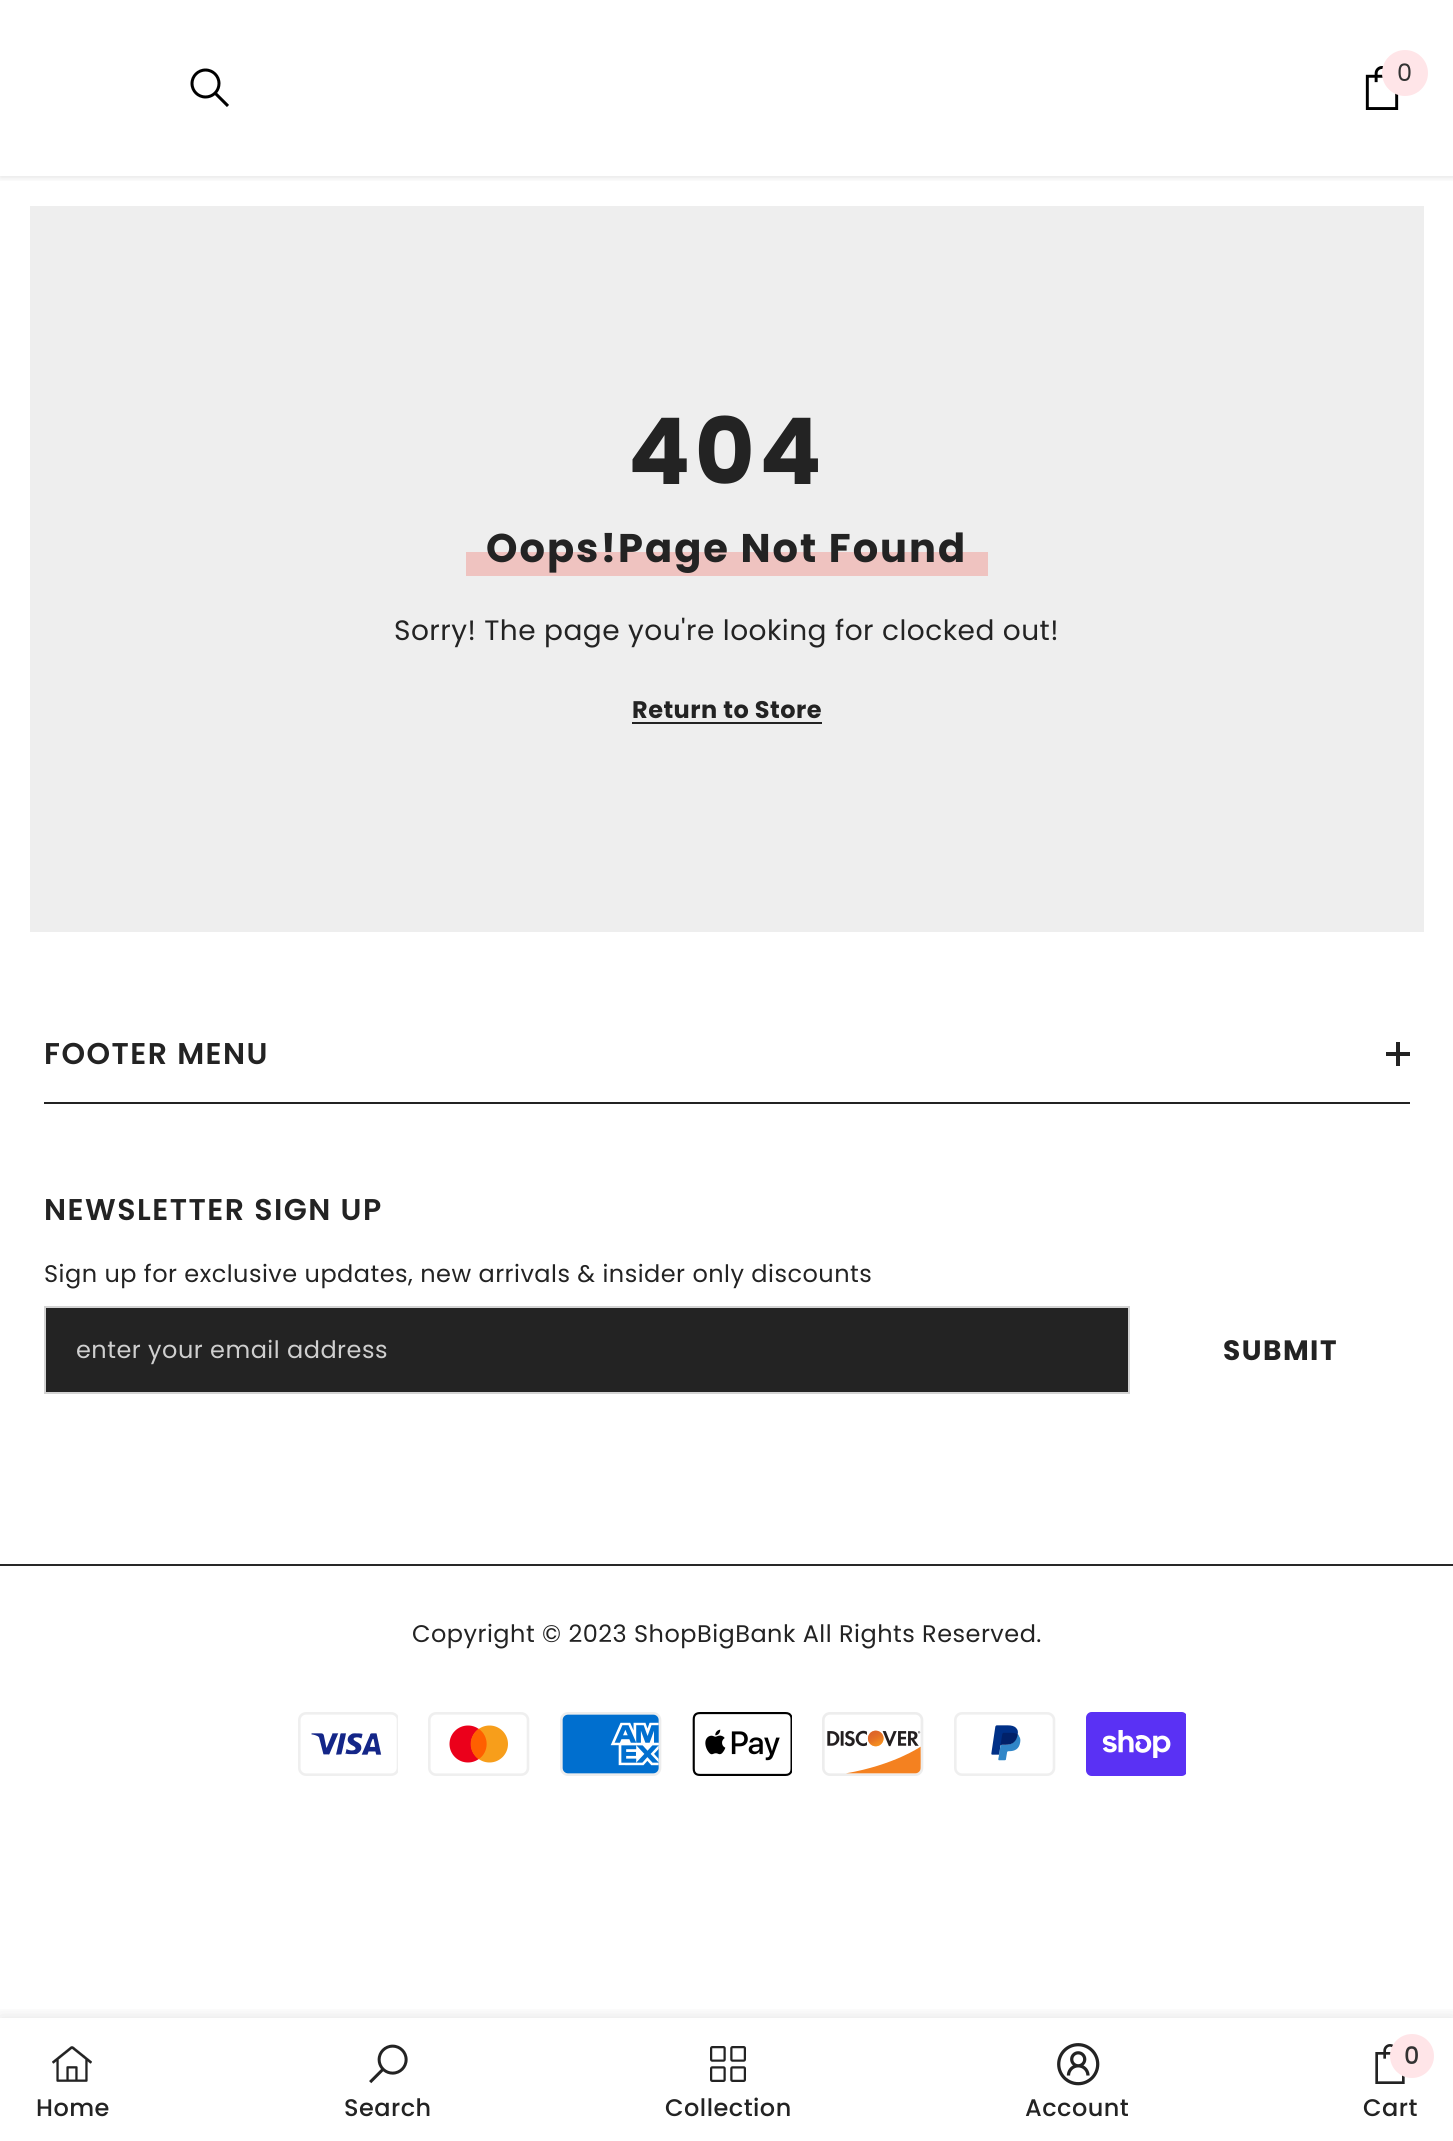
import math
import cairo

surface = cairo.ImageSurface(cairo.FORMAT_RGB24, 1453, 2141)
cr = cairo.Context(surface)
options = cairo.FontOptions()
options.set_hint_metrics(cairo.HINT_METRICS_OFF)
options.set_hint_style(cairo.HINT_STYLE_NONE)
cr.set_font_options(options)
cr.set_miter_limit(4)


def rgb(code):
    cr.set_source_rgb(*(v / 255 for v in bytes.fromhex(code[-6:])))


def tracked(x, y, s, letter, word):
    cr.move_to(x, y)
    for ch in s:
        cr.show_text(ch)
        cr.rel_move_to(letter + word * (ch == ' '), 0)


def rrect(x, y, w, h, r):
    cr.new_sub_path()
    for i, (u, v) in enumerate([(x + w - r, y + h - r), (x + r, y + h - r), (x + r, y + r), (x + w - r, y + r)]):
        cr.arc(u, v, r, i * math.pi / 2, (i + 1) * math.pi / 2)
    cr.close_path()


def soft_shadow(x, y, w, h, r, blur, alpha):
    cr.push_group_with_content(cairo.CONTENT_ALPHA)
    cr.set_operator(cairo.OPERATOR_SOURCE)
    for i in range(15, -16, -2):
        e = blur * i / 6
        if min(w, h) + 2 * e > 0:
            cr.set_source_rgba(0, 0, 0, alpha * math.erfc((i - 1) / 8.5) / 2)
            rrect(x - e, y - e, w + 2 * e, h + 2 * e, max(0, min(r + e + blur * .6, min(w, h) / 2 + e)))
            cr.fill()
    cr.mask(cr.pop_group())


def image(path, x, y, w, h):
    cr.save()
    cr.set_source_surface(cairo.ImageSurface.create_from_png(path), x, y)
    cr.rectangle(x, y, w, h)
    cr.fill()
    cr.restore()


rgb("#ffffff")
cr.paint()
cr.save()
cr.rectangle(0, 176, 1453, 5)
cr.clip()
rgb("#000000")
soft_shadow(0, 2, 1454, 176, 0, 3, 0.1)
cr.restore()
image("img/1.png", 190, 68, 39, 39)
image("img/2.png", 1365, 66, 34, 44)
rgb("#ffe5e8")
cr.arc(1405, 73, 23, 0, 2 * math.pi)
cr.fill()
for x, y, w, h, color in [
    (30, 206, 1394, 726, "#eeeeee"),
    (466, 552, 522, 24, "#efc3c0"),
    (632, 722, 190, 2, "#232323"),
    (44, 1102, 1366, 2, "#232323"),
    (1396, 1042, 4, 24, "#232323"),
    (1386, 1052, 24, 4, "#232323"),
]:
    rgb(color)
    cr.rectangle(x, y, w, h)
    cr.fill()
cr.rectangle(45, 1307, 1084, 86)
cr.fill_preserve()
rgb("#d3d3d3")
cr.stroke()
rgb("#282828")
cr.rectangle(0, 1564, 1453, 2)
cr.fill()
image("img/3.png", 298, 1712, 100, 64)
image("img/4.png", 428, 1712, 102, 64)
image("img/5.png", 560, 1712, 102, 64)
image("img/6.png", 692, 1712, 100, 64)
image("img/7.png", 822, 1712, 102, 64)
image("img/8.png", 954, 1712, 102, 64)
image("img/9.png", 1086, 1712, 100, 64)
cr.save()
cr.rectangle(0, 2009, 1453, 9)
cr.clip()
rgb("#000000")
soft_shadow(0, 2018, 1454, 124, 0, 9, 0.12)
cr.restore()
image("img/10.png", 52, 2046, 40, 36)
image("img/11.png", 369, 2044, 39, 40)
image("img/12.png", 710, 2046, 36, 36)
image("img/13.png", 1057, 2043, 43, 43)
image("img/14.png", 1375, 2044, 30, 40)
rgb("#ffe5e8")
cr.arc(1412, 2056, 22, 0, 2 * math.pi)
cr.fill()
cr.select_font_face("Poppins")
cr.set_font_size(24)
rgb("#323232")
tracked(1397, 81, "0", 0.48, 0)
cr.select_font_face("Poppins", cairo.FONT_SLANT_NORMAL, cairo.FONT_WEIGHT_BOLD)
cr.set_font_size(92)
rgb("#232323")
tracked(628, 484, "404", 4.5, 0)
cr.set_font_size(40)
tracked(486, 562, "Oops!Page Not Found", 2, 0)
cr.select_font_face("Poppins")
cr.set_font_size(28)
tracked(394, 640, "Sorry! The page you're looking for clocked out!", 0.48, 0)
cr.select_font_face("Poppins", cairo.FONT_SLANT_NORMAL, cairo.FONT_WEIGHT_BOLD)
cr.set_font_size(24)
tracked(632, 718, "Return to Store", 0.48, 0)
cr.select_font_face("Poppins SemiBold")
cr.set_font_size(30)
tracked(44, 1064, "FOOTER MENU", 1.5, 0)
tracked(44, 1220, "NEWSLETTER SIGN UP", 1.5, 0)
cr.select_font_face("Poppins")
cr.set_font_size(24)
tracked(44, 1282, "Sign up for exclusive updates, new arrivals & insider only discounts", 0.48, 0)
rgb("#cfcfcf")
tracked(76, 1358, "enter your email address", 0.48, 0)
cr.select_font_face("Poppins", cairo.FONT_SLANT_NORMAL, cairo.FONT_WEIGHT_BOLD)
cr.set_font_size(28)
rgb("#232323")
tracked(1223, 1360, "SUBMIT", 1.5, 0)
cr.select_font_face("Poppins")
cr.set_font_size(24)
tracked(412, 1642, "Copyright © 2023 ShopBigBank All Rights Reserved.", 0.48, 0)
cr.select_font_face("Poppins Medium")
for x, y, s in [
    (36, 2116, "Home"),
    (344, 2116, "Search"),
    (665, 2116, "Collection"),
    (1025, 2116, "Account"),
]:
    tracked(x, y, s, 0.48, 0)
rgb("#323232")
tracked(1404, 2064, "0", 0.48, 0)
rgb("#232323")
tracked(1363, 2116, "Cart", 0.48, 0)
surface.write_to_png("page.png")
